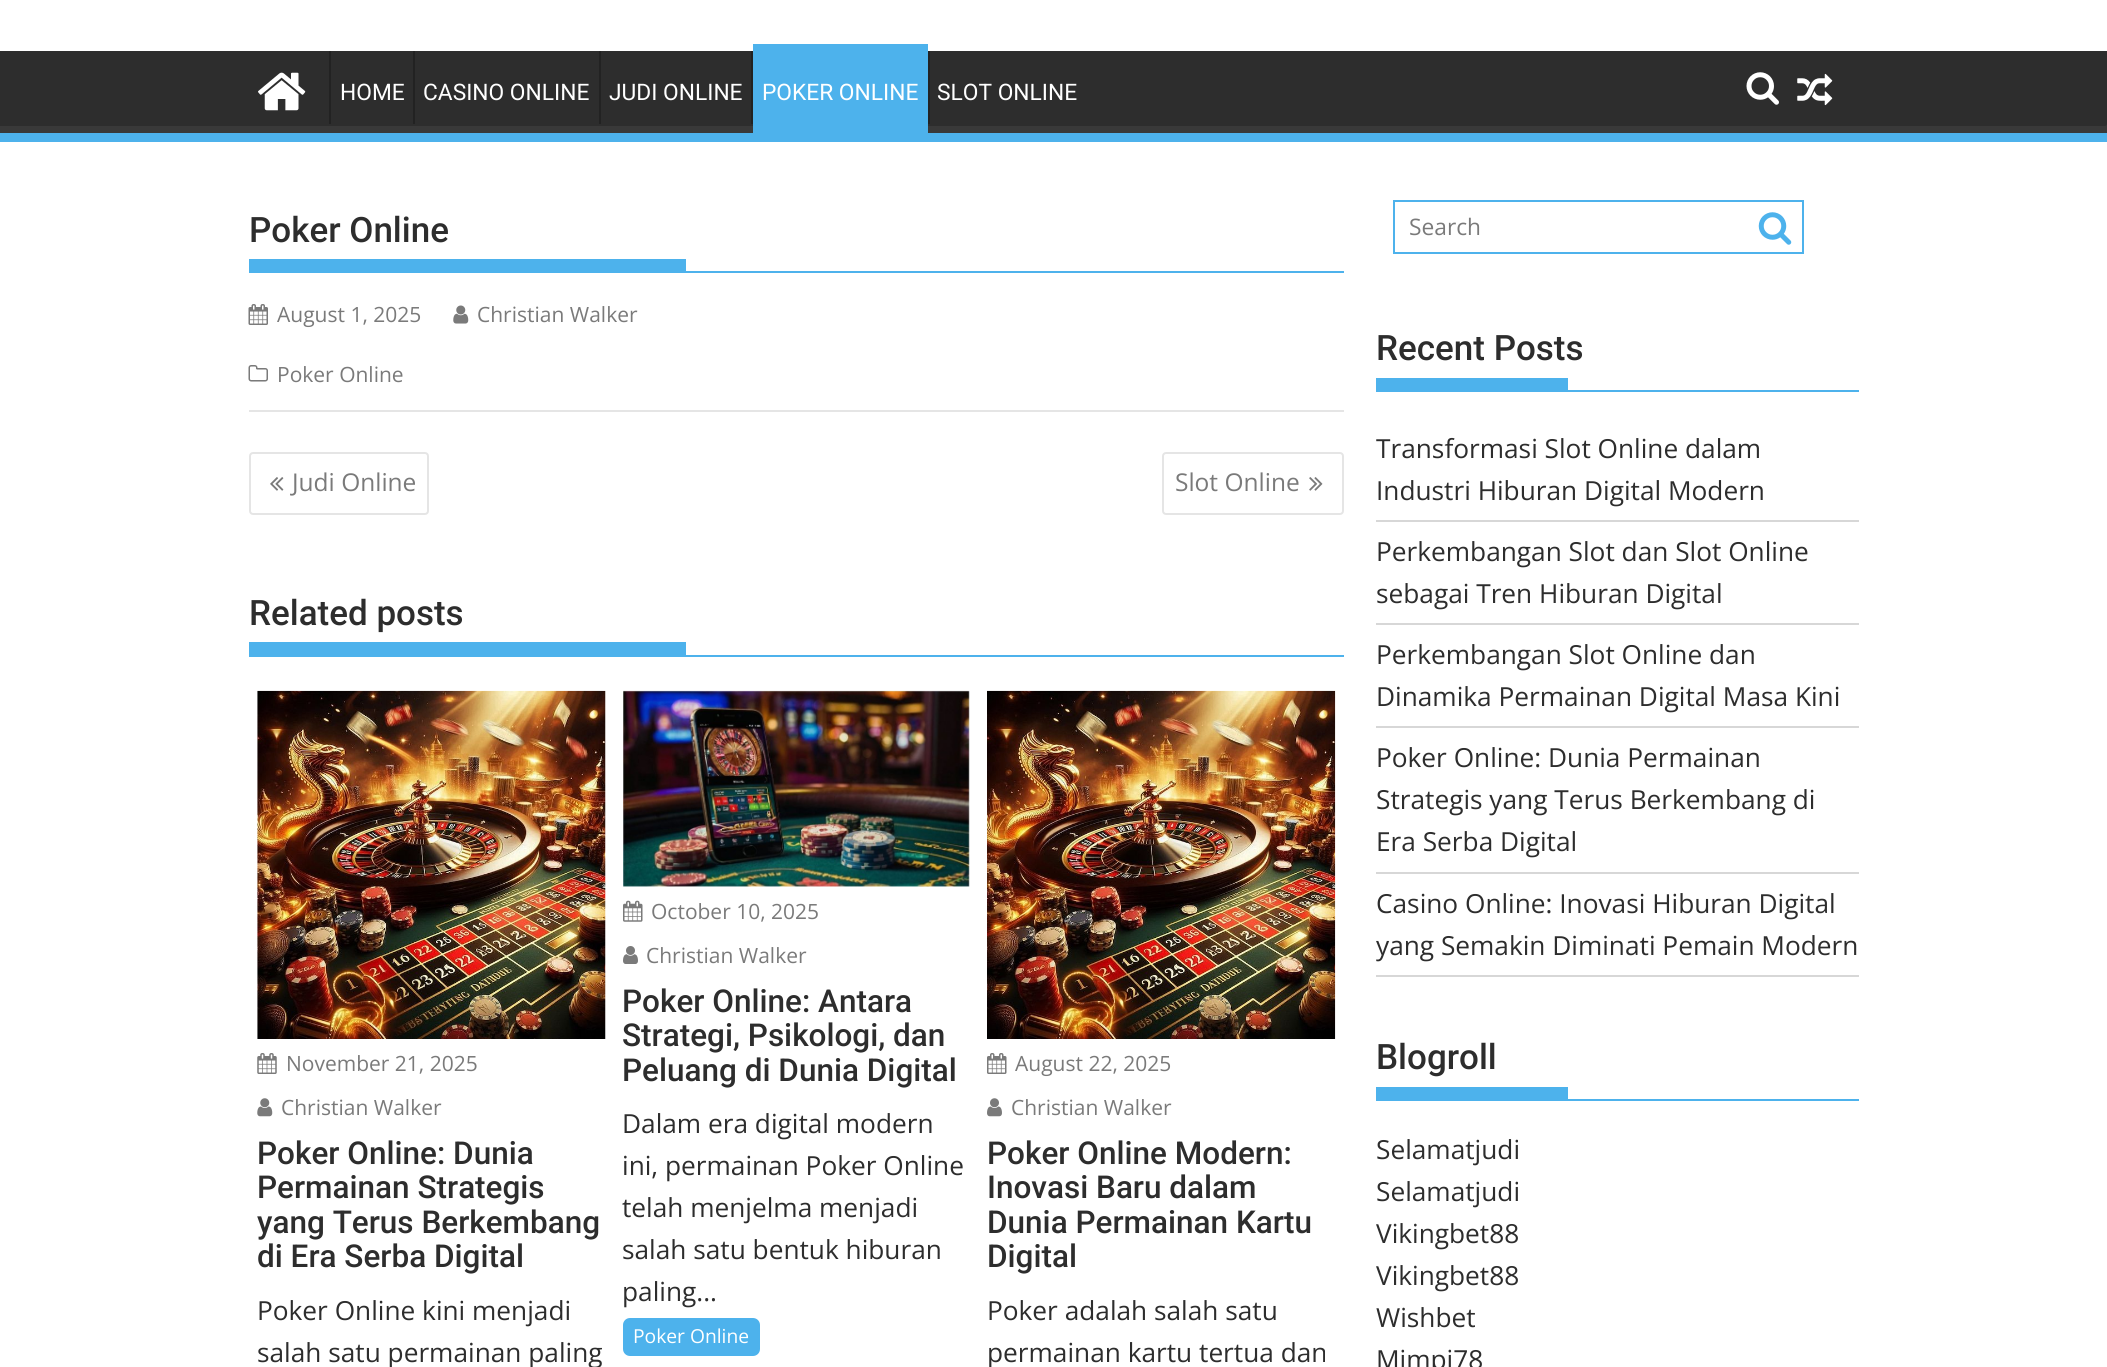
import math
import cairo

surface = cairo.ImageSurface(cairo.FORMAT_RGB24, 2107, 1367)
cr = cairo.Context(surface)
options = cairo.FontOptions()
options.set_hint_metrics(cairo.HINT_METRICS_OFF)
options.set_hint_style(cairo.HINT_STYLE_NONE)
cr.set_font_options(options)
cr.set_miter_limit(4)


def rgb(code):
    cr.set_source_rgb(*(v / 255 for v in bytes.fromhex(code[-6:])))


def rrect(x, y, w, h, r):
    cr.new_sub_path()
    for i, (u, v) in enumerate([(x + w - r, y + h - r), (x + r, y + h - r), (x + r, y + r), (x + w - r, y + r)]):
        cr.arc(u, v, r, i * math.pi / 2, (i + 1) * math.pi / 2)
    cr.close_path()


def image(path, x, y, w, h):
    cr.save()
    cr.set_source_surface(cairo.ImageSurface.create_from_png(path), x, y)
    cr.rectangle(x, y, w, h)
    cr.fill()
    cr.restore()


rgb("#ffffff")
cr.paint()
rgb("#2d2d2d")
cr.rectangle(0, 51, 2107, 75)
cr.fill()
cr.save()
cr.rectangle(0, 51, 2107, 82)
cr.clip()
rgb("#393939")
cr.set_fill_rule(cairo.FILL_RULE_EVEN_ODD)
cr.new_path()
cr.move_to(-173, -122)
cr.line_to(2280, -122)
cr.line_to(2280, 306)
cr.line_to(-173, 306)
cr.close_path()
cr.move_to(-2, 40)
cr.line_to(2105, 40)
cr.curve_to(2106, 40, 2107, 41, 2107, 42)
cr.line_to(2107, 124)
cr.curve_to(2107, 125, 2106, 126, 2105, 126)
cr.line_to(-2, 126)
cr.curve_to(-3, 126, -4, 125, -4, 124)
cr.line_to(-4, 42)
cr.curve_to(-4, 41, -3, 40, -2, 40)
cr.close_path()
cr.fill()
cr.restore()
rgb("#4db2ec")
cr.rectangle(0, 133, 2107, 9)
cr.fill()
image("img/1.png", 258, 72, 48, 39)
for x, y, w, h, color in [
    (329, 51, 2, 73, "#222222"),
    (413, 51, 2, 73, "#222222"),
    (599, 51, 2, 73, "#222222"),
    (751, 51, 2, 73, "#222222"),
    (753, 44, 175, 89, "#4db2ec"),
    (928, 51, 2, 73, "#222222"),
]:
    rgb(color)
    cr.rectangle(x, y, w, h)
    cr.fill()
image("img/2.png", 1746, 72, 33, 33)
image("img/3.png", 1797, 73, 36, 33)
for x, y, w, h, color in [
    (249, 410, 1095, 2, "#e5e5e5"),
    (249, 271, 1095, 2, "#4db2ec"),
    (249, 259, 437, 12, "#4db2ec"),
]:
    rgb(color)
    cr.rectangle(x, y, w, h)
    cr.fill()
image("img/4.png", 248, 304, 20, 21)
image("img/5.png", 453, 305, 16, 19)
image("img/6.png", 248, 365, 20, 17)
rrect(250, 453, 178, 61, 3)
rgb("#e5e5e5")
cr.stroke()
image("img/7.png", 270, 477, 14, 14)
rrect(1163, 453, 180, 61, 3)
cr.stroke()
image("img/8.png", 1309, 477, 14, 14)
rgb("#4db2ec")
cr.rectangle(249, 655, 1095, 2)
cr.fill()
cr.rectangle(249, 642, 437, 13)
cr.fill()
image("img/9.png", 257, 690, 349, 349)
image("img/10.png", 257, 1053, 20, 21)
image("img/11.png", 257, 1098, 16, 19)
image("img/12.png", 623, 690, 347, 197)
image("img/13.png", 623, 900, 20, 22)
image("img/14.png", 623, 946, 15, 18)
rrect(623, 1318, 137, 38, 7)
cr.fill()
image("img/15.png", 987, 690, 349, 349)
image("img/16.png", 987, 1053, 20, 21)
image("img/17.png", 987, 1098, 15, 19)
cr.rectangle(1394, 201, 409, 52)
cr.stroke()
image("img/18.png", 1758, 212, 34, 33)
for x, y, w, h, color in [
    (1376, 390, 483, 2, "#4db2ec"),
    (1376, 378, 192, 12, "#4db2ec"),
    (1376, 520, 483, 2, "#d7d7d7"),
    (1376, 623, 483, 2, "#d7d7d7"),
    (1376, 726, 483, 2, "#d7d7d7"),
    (1376, 872, 483, 2, "#d7d7d7"),
    (1376, 975, 483, 2, "#d7d7d7"),
    (1376, 1099, 483, 2, "#4db2ec"),
    (1376, 1087, 192, 12, "#4db2ec"),
]:
    rgb(color)
    cr.rectangle(x, y, w, h)
    cr.fill()
cr.select_font_face("Roboto")
cr.set_font_size(22.75)
rgb("#ffffff")
for x, y, s in [
    (340, 100, "HOME"),
    (423, 100, "CASINO ONLINE"),
    (609, 100, "JUDI ONLINE"),
    (762, 100, "POKER ONLINE"),
    (937, 100, "SLOT ONLINE"),
]:
    cr.move_to(x, y)
    cr.show_text(s)
cr.select_font_face("Roboto Medium")
cr.set_font_size(35)
rgb("#2d2d2d")
cr.move_to(249, 242)
cr.show_text("Poker Online")
cr.select_font_face("Open Sans")
cr.set_font_size(21)
rgb("#7a7a7a")
for x, y, s in [
    (277, 322, "August 1, 2025"),
    (477, 322, "Christian Walker"),
    (277, 382, "Poker Online"),
]:
    cr.move_to(x, y)
    cr.show_text(s)
cr.set_font_size(24.5)
cr.move_to(292, 491)
cr.show_text("Judi Online")
cr.move_to(1175, 491)
cr.show_text("Slot Online")
cr.select_font_face("Roboto Medium")
cr.set_font_size(35)
rgb("#2d2d2d")
cr.move_to(249, 625)
cr.show_text("Related posts")
cr.select_font_face("Open Sans")
cr.set_font_size(21)
rgb("#7a7a7a")
cr.move_to(286, 1071)
cr.show_text("November 21, 2025")
cr.move_to(281, 1115)
cr.show_text("Christian Walker")
cr.select_font_face("Roboto Medium")
cr.set_font_size(31.5)
rgb("#2d2d2d")
for x, y, s in [
    (257, 1164, "Poker Online: Dunia"),
    (257, 1198, "Permainan Strategis"),
    (257, 1233, "yang Terus Berkembang"),
    (257, 1267, "di Era Serba Digital"),
]:
    cr.move_to(x, y)
    cr.show_text(s)
cr.select_font_face("Open Sans")
cr.set_font_size(26.25)
cr.move_to(257, 1320)
cr.show_text("Poker Online kini menjadi")
cr.move_to(257, 1362)
cr.show_text("salah satu permainan paling")
cr.set_font_size(21)
rgb("#7a7a7a")
cr.move_to(651, 919)
cr.show_text("October 10, 2025")
cr.move_to(646, 963)
cr.show_text("Christian Walker")
cr.select_font_face("Roboto Medium")
cr.set_font_size(31.5)
rgb("#2d2d2d")
for x, y, s in [
    (622, 1012, "Poker Online: Antara"),
    (622, 1046, "Strategi, Psikologi, dan"),
    (622, 1081, "Peluang di Dunia Digital"),
]:
    cr.move_to(x, y)
    cr.show_text(s)
cr.select_font_face("Open Sans")
cr.set_font_size(26.25)
for x, y, s in [
    (622, 1133, "Dalam era digital modern"),
    (622, 1175, "ini, permainan Poker Online"),
    (622, 1217, "telah menjelma menjadi"),
    (622, 1259, "salah satu bentuk hiburan"),
    (622, 1301, "paling..."),
]:
    cr.move_to(x, y)
    cr.show_text(s)
cr.set_font_size(19.25)
rgb("#ffffff")
cr.move_to(633, 1343)
cr.show_text("Poker Online")
cr.set_font_size(21)
rgb("#7a7a7a")
cr.move_to(1015, 1071)
cr.show_text("August 22, 2025")
cr.move_to(1011, 1115)
cr.show_text("Christian Walker")
cr.select_font_face("Roboto Medium")
cr.set_font_size(31.5)
rgb("#2d2d2d")
for x, y, s in [
    (987, 1164, "Poker Online Modern:"),
    (987, 1198, "Inovasi Baru dalam"),
    (987, 1233, "Dunia Permainan Kartu"),
    (987, 1267, "Digital"),
]:
    cr.move_to(x, y)
    cr.show_text(s)
cr.select_font_face("Open Sans")
cr.set_font_size(26.25)
cr.move_to(987, 1320)
cr.show_text("Poker adalah salah satu")
cr.move_to(987, 1362)
cr.show_text("permainan kartu tertua dan")
cr.set_font_size(22.75)
rgb("#7a7a7a")
cr.move_to(1409, 235)
cr.show_text("Search")
cr.select_font_face("Roboto Medium")
cr.set_font_size(35)
rgb("#2d2d2d")
cr.move_to(1376, 360)
cr.show_text("Recent Posts")
cr.select_font_face("Open Sans")
cr.set_font_size(26.25)
for x, y, s in [
    (1376, 458, "Transformasi Slot Online dalam"),
    (1376, 500, "Industri Hiburan Digital Modern"),
    (1376, 561, "Perkembangan Slot dan Slot Online"),
    (1376, 603, "sebagai Tren Hiburan Digital"),
    (1376, 664, "Perkembangan Slot Online dan"),
    (1376, 706, "Dinamika Permainan Digital Masa Kini"),
    (1376, 767, "Poker Online: Dunia Permainan"),
    (1376, 809, "Strategis yang Terus Berkembang di"),
    (1376, 851, "Era Serba Digital"),
    (1376, 913, "Casino Online: Inovasi Hiburan Digital"),
    (1376, 955, "yang Semakin Diminati Pemain Modern"),
]:
    cr.move_to(x, y)
    cr.show_text(s)
cr.select_font_face("Roboto Medium")
cr.set_font_size(35)
cr.move_to(1376, 1069)
cr.show_text("Blogroll")
cr.select_font_face("Open Sans")
cr.set_font_size(26.25)
for x, y, s in [
    (1376, 1159, "Selamatjudi"),
    (1376, 1201, "Selamatjudi"),
    (1376, 1243, "Vikingbet88"),
    (1376, 1285, "Vikingbet88"),
    (1376, 1327, "Wishbet"),
    (1376, 1369, "Mimpi78"),
]:
    cr.move_to(x, y)
    cr.show_text(s)
surface.write_to_png("page.png")
